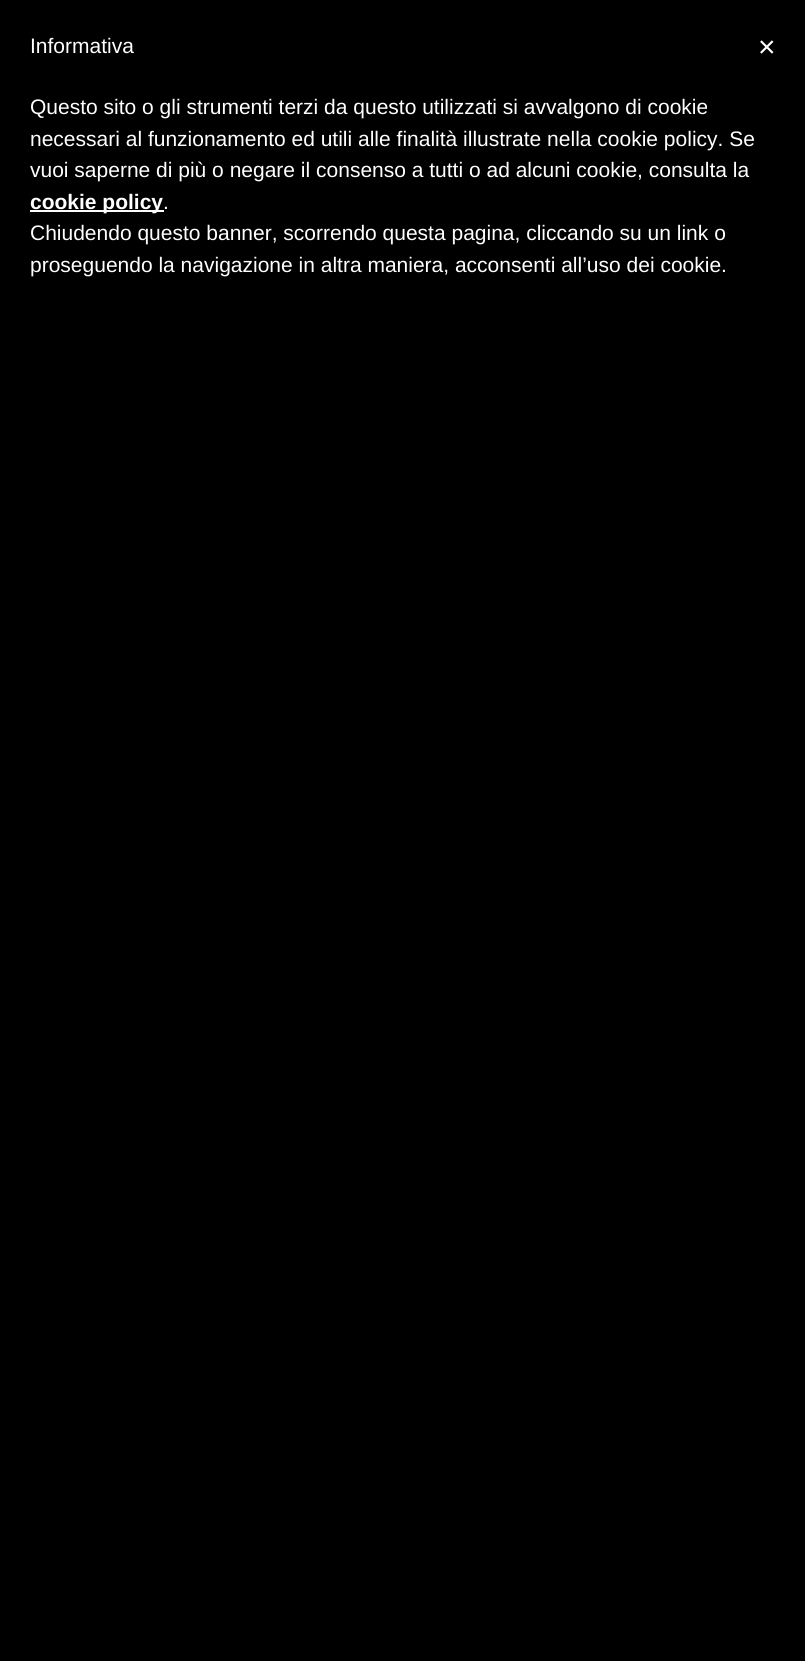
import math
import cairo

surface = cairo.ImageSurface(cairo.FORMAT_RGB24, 805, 1661)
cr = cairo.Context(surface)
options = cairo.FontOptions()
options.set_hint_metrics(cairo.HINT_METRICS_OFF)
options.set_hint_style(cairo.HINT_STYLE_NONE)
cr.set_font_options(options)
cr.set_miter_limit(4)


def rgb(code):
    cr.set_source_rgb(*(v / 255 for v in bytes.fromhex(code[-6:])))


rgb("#000000")
cr.paint()
rgb("#ffffff")
cr.rectangle(30, 210, 134, 2)
cr.fill()
cr.select_font_face("Liberation Sans")
cr.set_font_size(21)
for x, y, s in [
    (30, 53, "Informativa"),
    (30, 114, "Questo sito o gli strumenti terzi da questo utilizzati si avvalgono di cookie"),
    (30, 146, "necessari al funzionamento ed utili alle finalità illustrate nella cookie policy. Se"),
    (30, 177, "vuoi saperne di più o negare il consenso a tutti o ad alcuni cookie, consulta la"),
]:
    cr.move_to(x, y)
    cr.show_text(s)
cr.select_font_face("Liberation Sans", cairo.FONT_SLANT_NORMAL, cairo.FONT_WEIGHT_BOLD)
cr.move_to(30, 209)
cr.show_text("cookie policy")
cr.select_font_face("Liberation Sans")
for x, y, s in [
    (163, 209, "."),
    (30, 240, "Chiudendo questo banner, scorrendo questa pagina, cliccando su un link o"),
    (30, 272, "proseguendo la navigazione in altra maniera, acconsenti all’uso dei cookie."),
]:
    cr.move_to(x, y)
    cr.show_text(s)
cr.set_font_size(30)
cr.move_to(758, 57)
cr.show_text("×")
surface.write_to_png("page.png")
